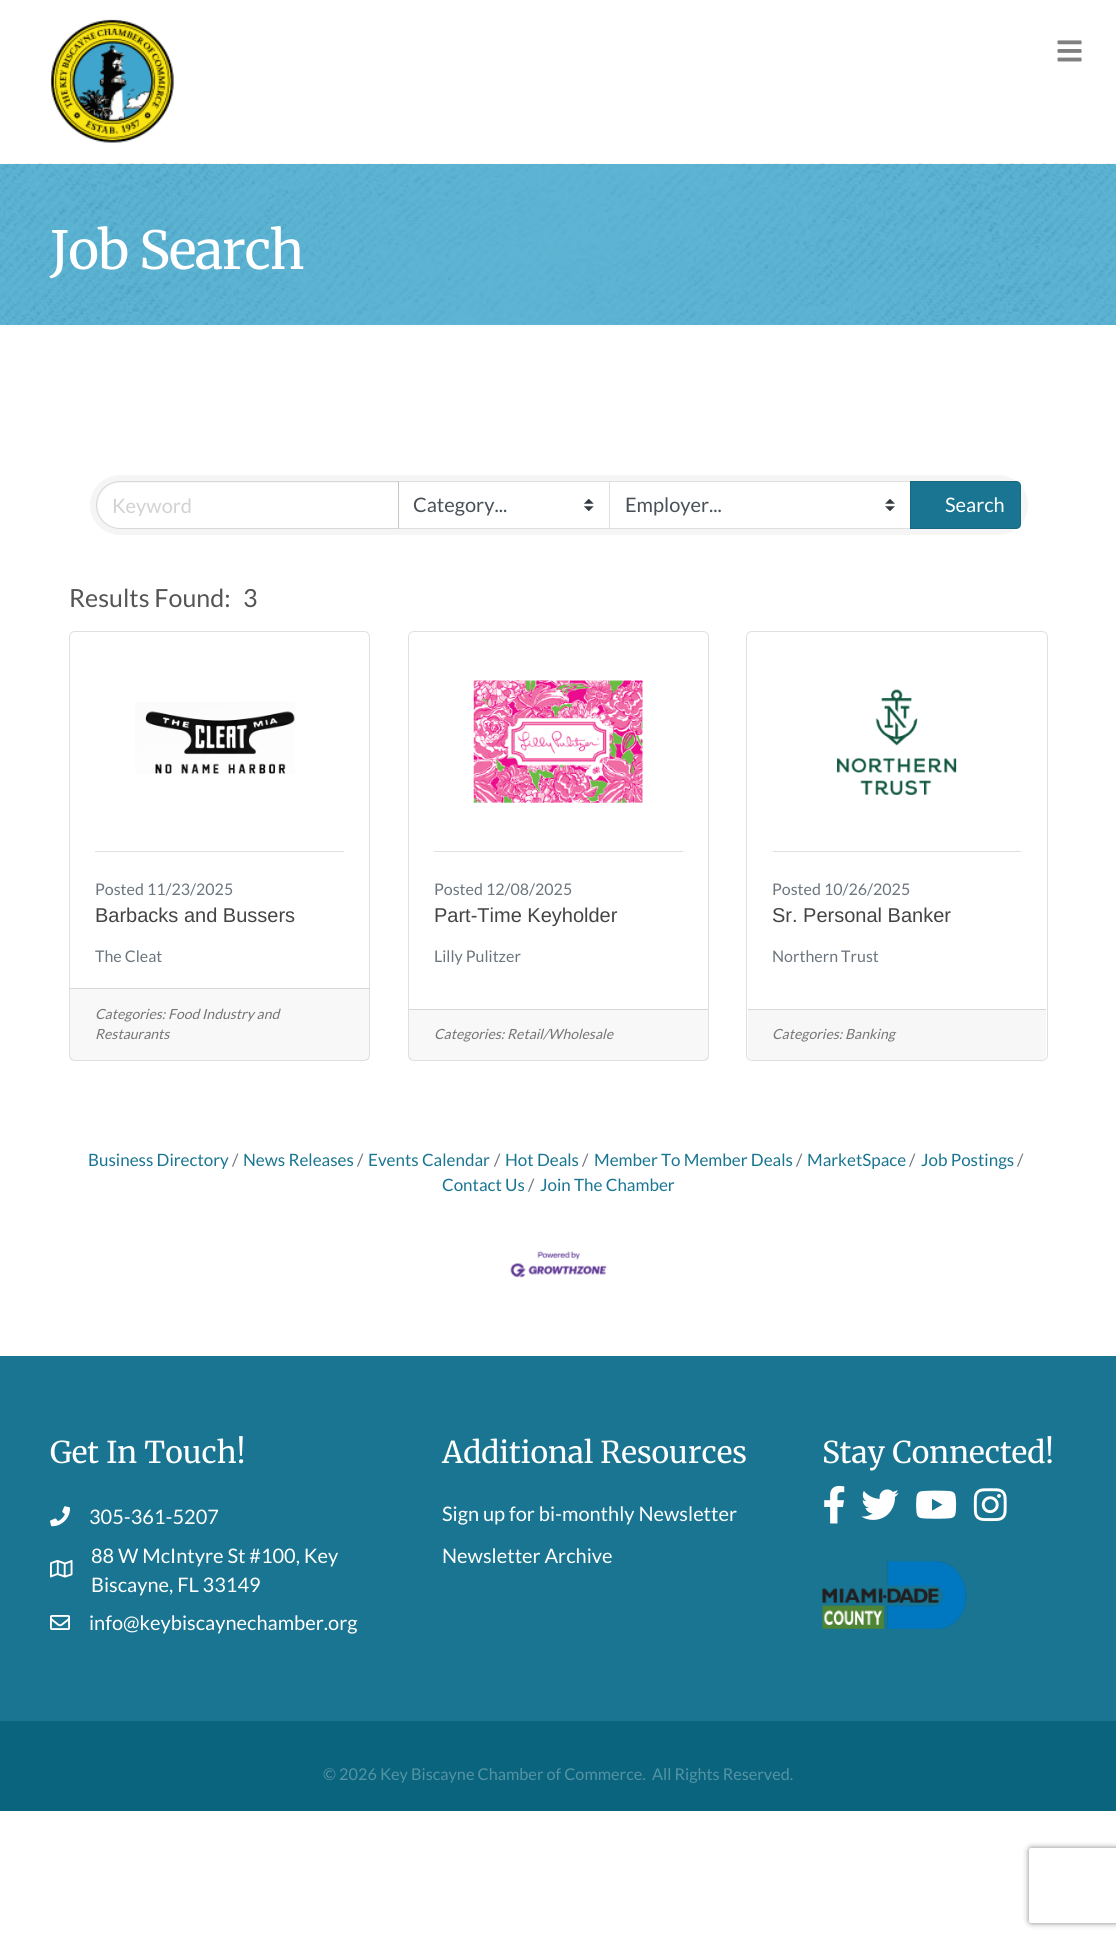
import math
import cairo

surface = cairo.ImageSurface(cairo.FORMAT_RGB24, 1116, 1939)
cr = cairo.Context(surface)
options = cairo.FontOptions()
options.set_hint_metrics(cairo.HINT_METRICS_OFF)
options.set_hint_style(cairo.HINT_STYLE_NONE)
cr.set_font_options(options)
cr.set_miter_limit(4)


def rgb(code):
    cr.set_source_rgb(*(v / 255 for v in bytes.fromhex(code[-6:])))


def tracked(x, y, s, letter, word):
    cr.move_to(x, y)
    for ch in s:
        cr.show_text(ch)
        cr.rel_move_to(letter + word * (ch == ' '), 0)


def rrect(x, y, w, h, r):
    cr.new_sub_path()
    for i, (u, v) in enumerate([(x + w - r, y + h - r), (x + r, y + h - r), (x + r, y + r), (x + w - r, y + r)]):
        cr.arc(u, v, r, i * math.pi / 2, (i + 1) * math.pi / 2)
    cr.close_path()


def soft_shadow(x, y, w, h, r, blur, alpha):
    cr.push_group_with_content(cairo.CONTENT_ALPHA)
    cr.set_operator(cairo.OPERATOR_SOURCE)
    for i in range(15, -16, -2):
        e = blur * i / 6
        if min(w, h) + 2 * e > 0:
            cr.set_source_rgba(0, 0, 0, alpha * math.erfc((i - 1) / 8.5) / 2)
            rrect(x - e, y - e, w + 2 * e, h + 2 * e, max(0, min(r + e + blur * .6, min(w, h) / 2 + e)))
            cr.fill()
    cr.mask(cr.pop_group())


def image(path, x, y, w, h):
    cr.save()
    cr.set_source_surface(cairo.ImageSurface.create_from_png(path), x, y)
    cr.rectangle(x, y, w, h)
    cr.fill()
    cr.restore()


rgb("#ffffff")
cr.paint()
image("img/1.png", 50, 19, 124, 124)
image("img/2.png", 1057, 40, 25, 22)
image("img/3.png", 0, 163, 1116, 162)
rgb("#f5f5f5")
rrect(90, 475, 938, 60, 30)
cr.fill()
rgb("#ffffff")
cr.new_path()
cr.move_to(120.5, 483)
cr.line_to(398, 483)
cr.line_to(398, 528)
cr.line_to(120.5, 528)
cr.curve_to(108, 528, 98, 518, 98, 505.5)
cr.curve_to(98, 493, 108, 483, 120.5, 483)
cr.close_path()
cr.fill()
cr.rectangle(399, 482, 210, 46)
cr.fill()
image("img/4.png", 584, 499, 10, 12)
cr.rectangle(398.5, 481.5, 211, 47)
rgb("#dfdfdf")
cr.set_line_width(1)
cr.stroke()
cr.new_path()
cr.move_to(120, 481.5)
cr.line_to(398.5, 481.5)
cr.line_to(398.5, 528.5)
cr.line_to(120, 528.5)
cr.curve_to(107, 528.5, 96.5, 518, 96.5, 505)
cr.curve_to(96.5, 492, 107, 481.5, 120, 481.5)
cr.close_path()
cr.set_source_rgba(0, 0, 0, 0.12)
cr.stroke()
rgb("#ffffff")
cr.rectangle(610, 482, 300, 46)
cr.fill()
image("img/5.png", 885, 499, 10, 12)
cr.rectangle(609.5, 481.5, 301, 47)
rgb("#dfdfdf")
cr.stroke()
rgb("#197591")
cr.new_path()
cr.move_to(910, 481)
cr.line_to(1016, 481)
cr.curve_to(1019, 481, 1021, 483, 1021, 486)
cr.line_to(1021, 524)
cr.curve_to(1021, 527, 1019, 529, 1016, 529)
cr.line_to(910, 529)
cr.close_path()
cr.fill()
cr.new_path()
cr.move_to(910.5, 481.5)
cr.line_to(1016, 481.5)
cr.curve_to(1018.5, 481.5, 1020.5, 483.5, 1020.5, 486)
cr.line_to(1020.5, 524)
cr.curve_to(1020.5, 526.5, 1018.5, 528.5, 1016, 528.5)
cr.line_to(910.5, 528.5)
cr.close_path()
cr.set_source_rgba(0, 0, 0, 0.12)
cr.stroke()
rrect(69.5, 631.5, 300, 429, 5.5)
rgb("#dfdfdf")
cr.stroke()
image("img/6.png", 135, 702, 160, 72)
cr.rectangle(95, 851, 249, 1)
cr.fill()
cr.set_source_rgba(0, 0, 0, 0.03)
cr.rectangle(70, 989, 299, 71)
cr.fill()
rgb("#d8d8d8")
cr.rectangle(70, 988, 299, 1)
cr.fill()
rrect(408.5, 631.5, 300, 429, 5.5)
rgb("#dfdfdf")
cr.stroke()
image("img/7.png", 473, 680, 170, 123)
cr.rectangle(434, 851, 249, 1)
cr.fill()
cr.set_source_rgba(0, 0, 0, 0.03)
cr.rectangle(409, 1010, 299, 50)
cr.fill()
rgb("#d8d8d8")
cr.rectangle(409, 1009, 299, 1)
cr.fill()
rrect(746.5, 631.5, 301, 429, 5.5)
rgb("#dfdfdf")
cr.stroke()
image("img/8.png", 837, 689, 120, 106)
cr.rectangle(773, 851, 248, 1)
cr.fill()
rgb("#f7f7f7")
cr.new_path()
cr.move_to(748, 1009)
cr.line_to(1046, 1009)
cr.line_to(1046, 1055)
cr.curve_to(1046, 1058, 1044, 1060, 1041, 1060)
cr.line_to(753, 1060)
cr.curve_to(750, 1060, 748, 1058, 748, 1055)
cr.close_path()
cr.fill()
rgb("#d8d8d8")
cr.rectangle(748, 1009, 298, 1)
cr.fill()
image("img/9.png", 510, 1251, 97, 27)
rgb("#197591")
cr.rectangle(0, 1356, 1116, 365)
cr.fill()
image("img/10.png", 50, 1506, 20, 21)
image("img/11.png", 50, 1560, 23, 18)
image("img/12.png", 50, 1615, 20, 15)
image("img/13.png", 824, 1485, 21, 39)
image("img/14.png", 861, 1489, 38, 31)
image("img/15.png", 916, 1490, 41, 29)
image("img/16.png", 973, 1488, 34, 34)
image("img/17.png", 822, 1561, 145, 68)
rgb("#0a647d")
cr.rectangle(0, 1721, 1116, 90)
cr.fill()
cr.save()
cr.set_fill_rule(cairo.FILL_RULE_EVEN_ODD)
cr.new_path()
cr.move_to(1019, 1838)
cr.line_to(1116, 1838)
cr.line_to(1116, 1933)
cr.line_to(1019, 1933)
cr.close_path()
cr.move_to(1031.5, 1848)
cr.line_to(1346.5, 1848)
cr.curve_to(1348, 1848, 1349, 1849, 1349, 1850.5)
cr.line_to(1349, 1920.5)
cr.curve_to(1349, 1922, 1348, 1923, 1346.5, 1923)
cr.line_to(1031.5, 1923)
cr.curve_to(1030, 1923, 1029, 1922, 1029, 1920.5)
cr.line_to(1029, 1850.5)
cr.curve_to(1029, 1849, 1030, 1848, 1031.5, 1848)
cr.close_path()
cr.clip()
rgb("#808080")
soft_shadow(1029, 1848, 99, 75, 2.5, 3, 1)
cr.restore()
cr.select_font_face("Merriweather Light")
cr.set_font_size(52.5)
rgb("#ffffff")
tracked(50, 269, "Job Search", -1.25, 0)
cr.save()
cr.rectangle(113, 493, 270, 23)
cr.clip()
cr.select_font_face("Lato")
cr.set_font_size(20)
rgb("#d2d2d2")
cr.move_to(112, 513)
cr.show_text("Keyword")
cr.restore()
cr.select_font_face("Lato")
cr.set_font_size(20)
rgb("#495057")
cr.move_to(413, 512)
cr.show_text("Category...")
cr.move_to(625, 512)
cr.show_text("Employer...")
rgb("#ffffff")
cr.move_to(945, 512)
cr.show_text("Search")
cr.set_font_size(25)
rgb("#555555")
cr.move_to(69, 607)
cr.show_text("Results Found:")
cr.move_to(243, 607)
cr.show_text("3")
cr.set_font_size(16)
rgb("#6c757d")
cr.move_to(95, 895)
cr.show_text("Posted 11/23/2025")
cr.select_font_face("Liberation Sans")
cr.set_font_size(20)
rgb("#444444")
cr.move_to(95, 922)
cr.show_text("Barbacks and Bussers")
cr.select_font_face("Lato")
cr.set_font_size(16)
rgb("#6c757d")
cr.move_to(95, 962)
cr.show_text("The Cleat")
cr.select_font_face("Lato", cairo.FONT_SLANT_ITALIC)
cr.set_font_size(14)
rgb("#757575")
cr.move_to(95, 1019)
cr.show_text("Categories: Food Industry and")
cr.move_to(95, 1039)
cr.show_text("Restaurants")
cr.select_font_face("Lato")
cr.set_font_size(16)
rgb("#6c757d")
cr.move_to(434, 895)
cr.show_text("Posted 12/08/2025")
cr.select_font_face("Liberation Sans")
cr.set_font_size(20)
rgb("#444444")
cr.move_to(434, 922)
cr.show_text("Part-Time Keyholder")
cr.select_font_face("Lato")
cr.set_font_size(16)
rgb("#6c757d")
cr.move_to(434, 962)
cr.show_text("Lilly Pulitzer")
cr.select_font_face("Lato", cairo.FONT_SLANT_ITALIC)
cr.set_font_size(14)
rgb("#757575")
cr.move_to(434, 1039)
cr.show_text("Categories: Retail/Wholesale")
cr.select_font_face("Lato")
cr.set_font_size(16)
rgb("#6c757d")
cr.move_to(772, 895)
cr.show_text("Posted 10/26/2025")
cr.select_font_face("Liberation Sans")
cr.set_font_size(20)
rgb("#444444")
cr.move_to(772, 922)
cr.show_text("Sr. Personal Banker")
cr.select_font_face("Lato")
cr.set_font_size(16)
rgb("#6c757d")
cr.move_to(772, 962)
cr.show_text("Northern Trust")
cr.select_font_face("Lato", cairo.FONT_SLANT_ITALIC)
cr.set_font_size(14)
rgb("#757575")
cr.move_to(772, 1039)
cr.show_text("Categories: Banking")
cr.select_font_face("Lato")
cr.set_font_size(17)
rgb("#197591")
cr.move_to(88, 1166)
cr.show_text("Business Directory")
rgb("#6c757d")
cr.move_to(232, 1166)
cr.show_text("/")
rgb("#197591")
cr.move_to(243, 1166)
cr.show_text("News Releases")
rgb("#6c757d")
cr.move_to(357, 1166)
cr.show_text("/")
rgb("#197591")
cr.move_to(368, 1166)
cr.show_text("Events Calendar")
rgb("#6c757d")
cr.move_to(1017, 1166)
cr.show_text("/")
rgb("#197591")
cr.move_to(442, 1191)
cr.show_text("Contact Us")
rgb("#6c757d")
cr.move_to(494, 1166)
cr.show_text("/")
rgb("#197591")
cr.move_to(505, 1166)
cr.show_text("Hot Deals")
rgb("#6c757d")
cr.move_to(582, 1166)
cr.show_text("/")
rgb("#197591")
cr.move_to(594, 1166)
cr.show_text("Member To Member Deals")
rgb("#6c757d")
cr.move_to(796, 1166)
cr.show_text("/")
rgb("#197591")
cr.move_to(807, 1166)
cr.show_text("MarketSpace")
rgb("#6c757d")
cr.move_to(909, 1166)
cr.show_text("/")
rgb("#197591")
cr.move_to(921, 1166)
cr.show_text("Job Postings")
rgb("#6c757d")
cr.move_to(528, 1191)
cr.show_text("/")
rgb("#197591")
cr.move_to(540, 1191)
cr.show_text("Join The Chamber")
cr.select_font_face("Merriweather Light")
cr.set_font_size(30)
rgb("#ffffff")
cr.move_to(50, 1463)
cr.show_text("Get In Touch!")
cr.select_font_face("Lato")
cr.set_font_size(20)
for x, y, s in [
    (89, 1524, "305-361-5207"),
    (91, 1563, "88 W McIntyre St #100, Key"),
    (91, 1592, "Biscayne, FL 33149"),
    (89, 1630, "info@keybiscaynechamber.org"),
]:
    cr.move_to(x, y)
    cr.show_text(s)
cr.select_font_face("Merriweather Light")
cr.set_font_size(30)
cr.move_to(442, 1463)
cr.show_text("Additional Resources")
cr.select_font_face("Lato")
cr.set_font_size(20)
cr.move_to(442, 1521)
cr.show_text("Sign up for bi-monthly Newsletter")
cr.move_to(442, 1563)
cr.show_text("Newsletter Archive")
cr.select_font_face("Merriweather Light")
cr.set_font_size(30)
cr.move_to(822, 1463)
cr.show_text("Stay Connected!")
cr.select_font_face("Lato")
cr.set_font_size(16.25)
rgb("#5493a4")
cr.move_to(323, 1780)
cr.show_text("© 2026 Key Biscayne Chamber of Commerce.")
cr.move_to(652, 1780)
cr.show_text("All Rights Reserved.")
surface.write_to_png("page.png")
